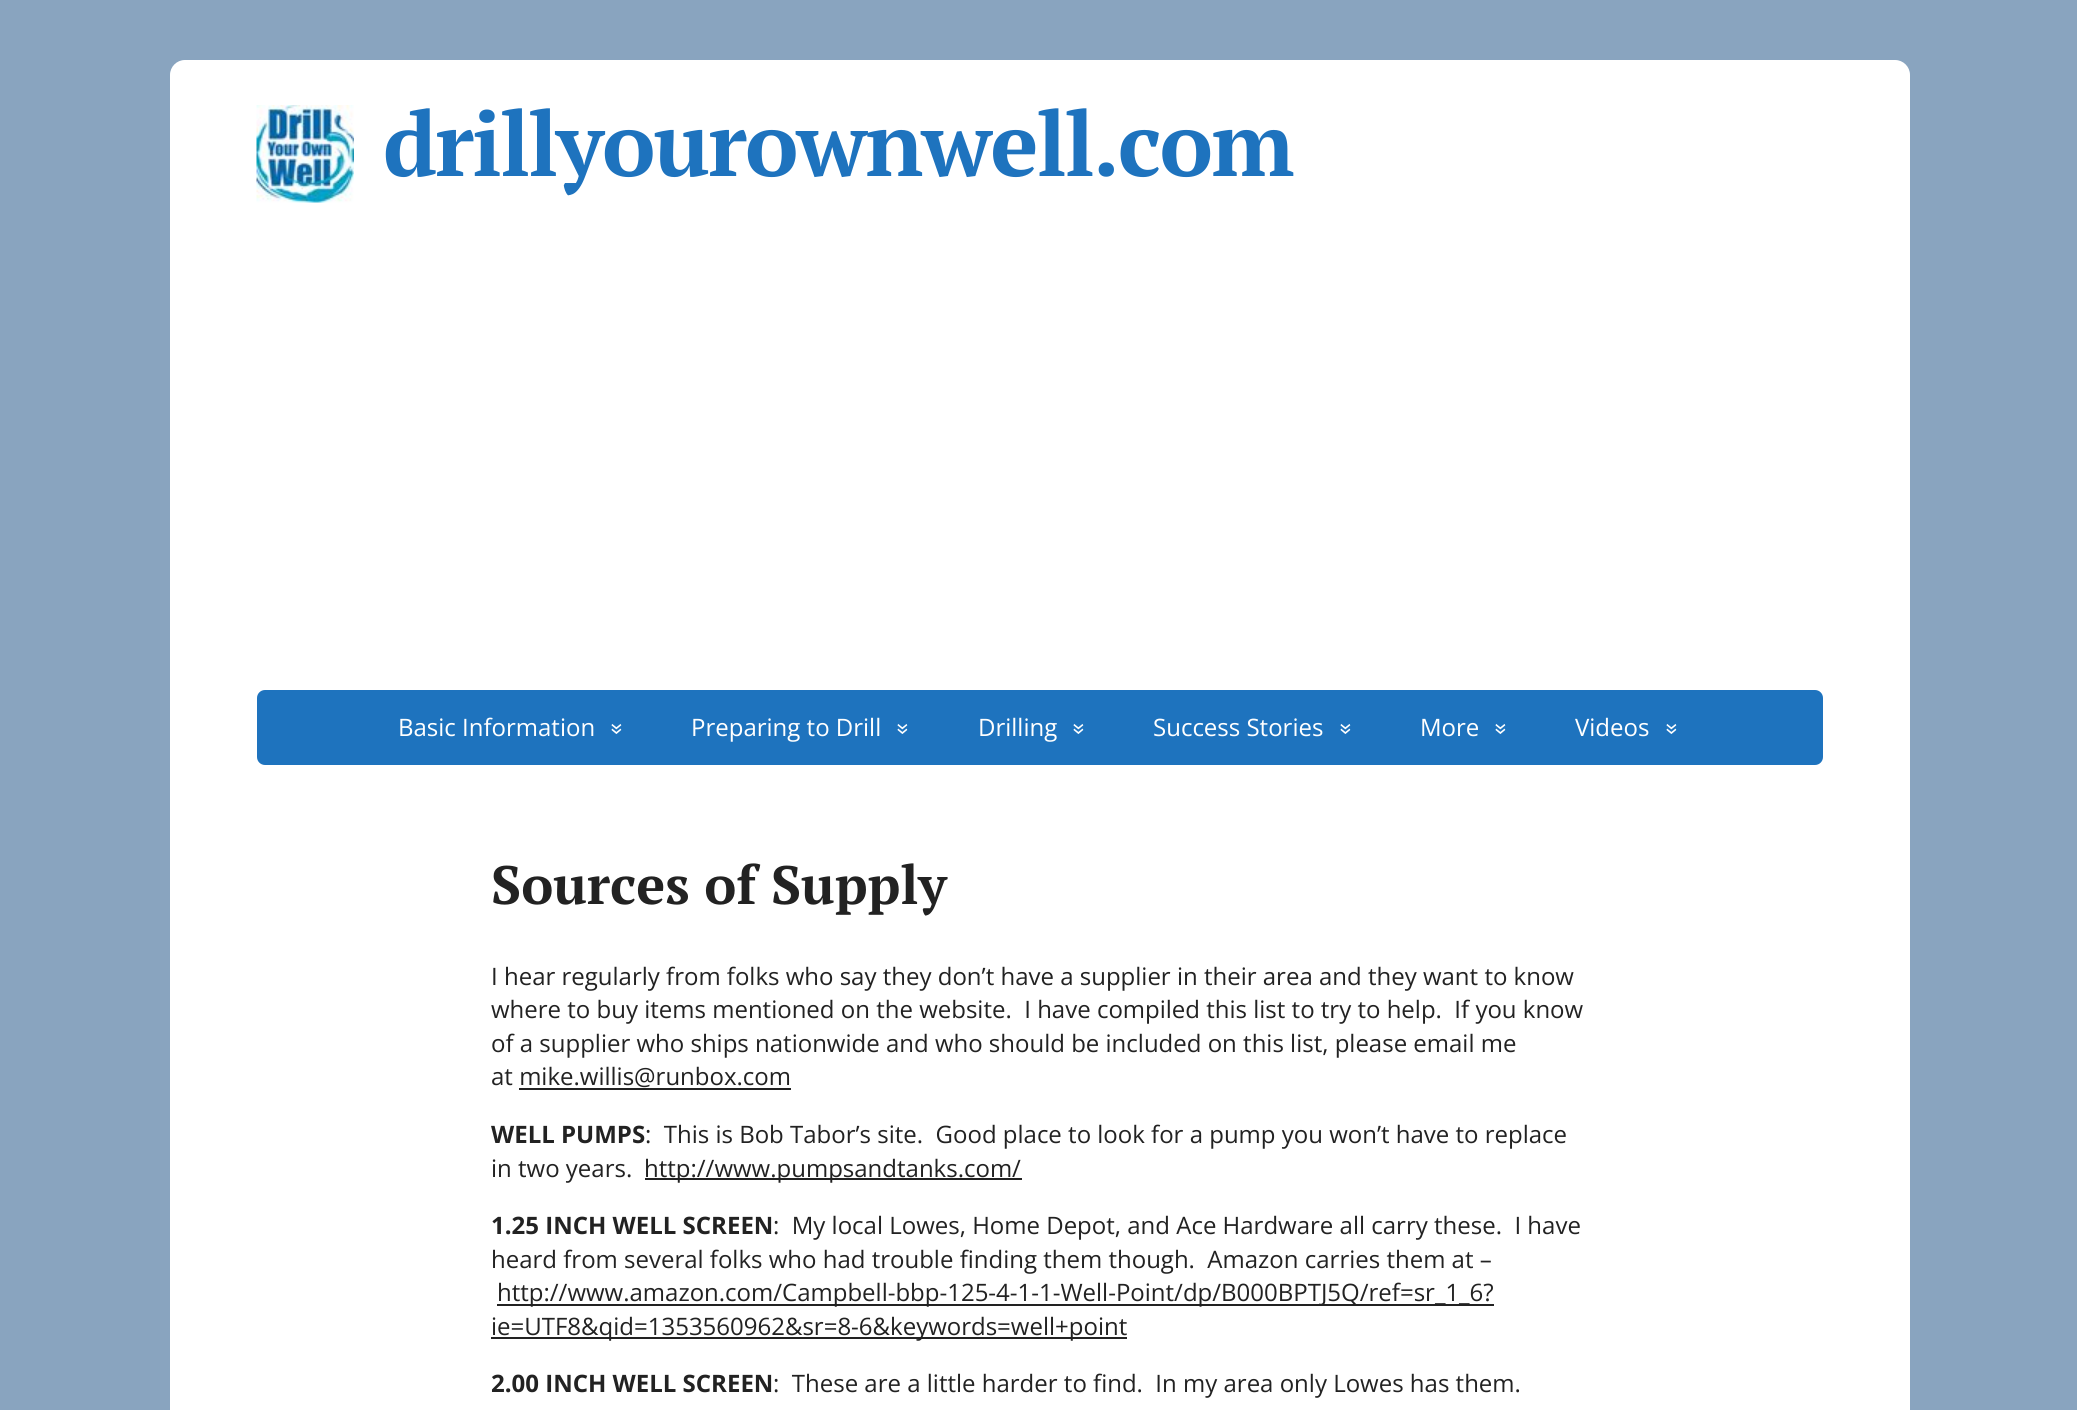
import math
import cairo

surface = cairo.ImageSurface(cairo.FORMAT_RGB24, 2077, 1410)
cr = cairo.Context(surface)
options = cairo.FontOptions()
options.set_hint_metrics(cairo.HINT_METRICS_OFF)
options.set_hint_style(cairo.HINT_STYLE_NONE)
cr.set_font_options(options)
cr.set_miter_limit(4)


def rgb(code):
    cr.set_source_rgb(*(v / 255 for v in bytes.fromhex(code[-6:])))


def tracked(x, y, s, letter, word):
    cr.move_to(x, y)
    for ch in s:
        cr.show_text(ch)
        cr.rel_move_to(letter + word * (ch == ' '), 0)


def rrect(x, y, w, h, r):
    cr.new_sub_path()
    for i, (u, v) in enumerate([(x + w - r, y + h - r), (x + r, y + h - r), (x + r, y + r), (x + w - r, y + r)]):
        cr.arc(u, v, r, i * math.pi / 2, (i + 1) * math.pi / 2)
    cr.close_path()


def image(path, x, y, w, h):
    cr.save()
    cr.set_source_surface(cairo.ImageSurface.create_from_png(path), x, y)
    cr.rectangle(x, y, w, h)
    cr.fill()
    cr.restore()


rgb("#89a4bf")
cr.paint()
rgb("#ffffff")
rrect(170, 60, 1740, 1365, 15)
cr.fill()
image("img/1.png", 256, 105, 98, 98)
rgb("#1e73be")
rrect(257, 690, 1566, 75, 8)
cr.fill()
for x, y, w, h, color in [
    (519, 1088, 272, 2, "#222222"),
    (645, 1178, 377, 2, "#222222"),
    (497, 1304, 997, 2, "#222222"),
    (491, 1337, 636, 2, "#222222"),
]:
    rgb(color)
    cr.rectangle(x, y, w, h)
    cr.fill()
cr.select_font_face("PT Serif", cairo.FONT_SLANT_NORMAL, cairo.FONT_WEIGHT_BOLD)
cr.set_font_size(90)
rgb("#1e73be")
tracked(383, 176, "drillyourownwell.com", -1.8, 0)
cr.select_font_face("Open Sans")
cr.set_font_size(24)
rgb("#ffffff")
cr.move_to(398, 736)
cr.show_text("Basic Information")
cr.save()
cr.translate(610, 723)
cr.rotate(90 * math.pi / 180)
cr.move_to(0, 0)
cr.show_text("»")
cr.restore()
cr.move_to(691, 736)
cr.show_text("Preparing to Drill")
cr.save()
cr.translate(896, 723)
cr.rotate(90 * math.pi / 180)
cr.move_to(0, 0)
cr.show_text("»")
cr.restore()
cr.move_to(978, 736)
cr.show_text("Drilling")
cr.save()
cr.translate(1072, 723)
cr.rotate(90 * math.pi / 180)
cr.move_to(0, 0)
cr.show_text("»")
cr.restore()
cr.move_to(1153, 736)
cr.show_text("Success Stories")
cr.save()
cr.translate(1339, 723)
cr.rotate(90 * math.pi / 180)
cr.move_to(0, 0)
cr.show_text("»")
cr.restore()
cr.move_to(1420, 736)
cr.show_text("More")
cr.save()
cr.translate(1494, 723)
cr.rotate(90 * math.pi / 180)
cr.move_to(0, 0)
cr.show_text("»")
cr.restore()
cr.move_to(1575, 736)
cr.show_text("Videos")
cr.save()
cr.translate(1665, 723)
cr.rotate(90 * math.pi / 180)
cr.move_to(0, 0)
cr.show_text("»")
cr.restore()
cr.select_font_face("PT Serif", cairo.FONT_SLANT_NORMAL, cairo.FONT_WEIGHT_BOLD)
cr.set_font_size(54)
rgb("#222222")
cr.move_to(491, 904)
cr.show_text("Sources of Supply")
cr.select_font_face("Open Sans")
cr.set_font_size(24)
for x, y, s in [
    (491, 985, "I hear regularly from folks who say they don’t have a supplier in their area and they want to know"),
    (491, 1018, "where to buy items mentioned on the website.  I have compiled this list to try to help.  If you know"),
    (491, 1052, "of a supplier who ships nationwide and who should be included on this list, please email me"),
    (491, 1085, "at mike.willis@runbox.com"),
]:
    cr.move_to(x, y)
    cr.show_text(s)
cr.select_font_face("Open Sans", cairo.FONT_SLANT_NORMAL, cairo.FONT_WEIGHT_BOLD)
cr.move_to(491, 1143)
cr.show_text("WELL PUMPS")
cr.select_font_face("Open Sans")
for x, y, s in [
    (645, 1143, ":  This is Bob Tabor’s site.  Good place to look for a pump you won’t have to replace"),
    (491, 1177, "in two years."),
    (644, 1177, "http://www.pumpsandtanks.com/"),
]:
    cr.move_to(x, y)
    cr.show_text(s)
cr.select_font_face("Open Sans", cairo.FONT_SLANT_NORMAL, cairo.FONT_WEIGHT_BOLD)
cr.move_to(491, 1234)
cr.show_text("1.25 INCH WELL SCREEN")
cr.select_font_face("Open Sans")
for x, y, s in [
    (773, 1234, ":  My local Lowes, Home Depot, and Ace Hardware all carry these.  I have"),
    (491, 1268, "heard from several folks who had trouble finding them though.  Amazon carries them at –"),
    (497, 1301, "http://www.amazon.com/Campbell-bbp-125-4-1-1-Well-Point/dp/B000BPTJ5Q/ref=sr_1_6?"),
    (491, 1335, "ie=UTF8&qid=1353560962&sr=8-6&keywords=well+point"),
]:
    cr.move_to(x, y)
    cr.show_text(s)
cr.select_font_face("Open Sans", cairo.FONT_SLANT_NORMAL, cairo.FONT_WEIGHT_BOLD)
cr.move_to(491, 1392)
cr.show_text("2.00 INCH WELL SCREEN")
cr.select_font_face("Open Sans")
cr.move_to(773, 1392)
cr.show_text(":  These are a little harder to find.  In my area only Lowes has them.")
surface.write_to_png("page.png")
